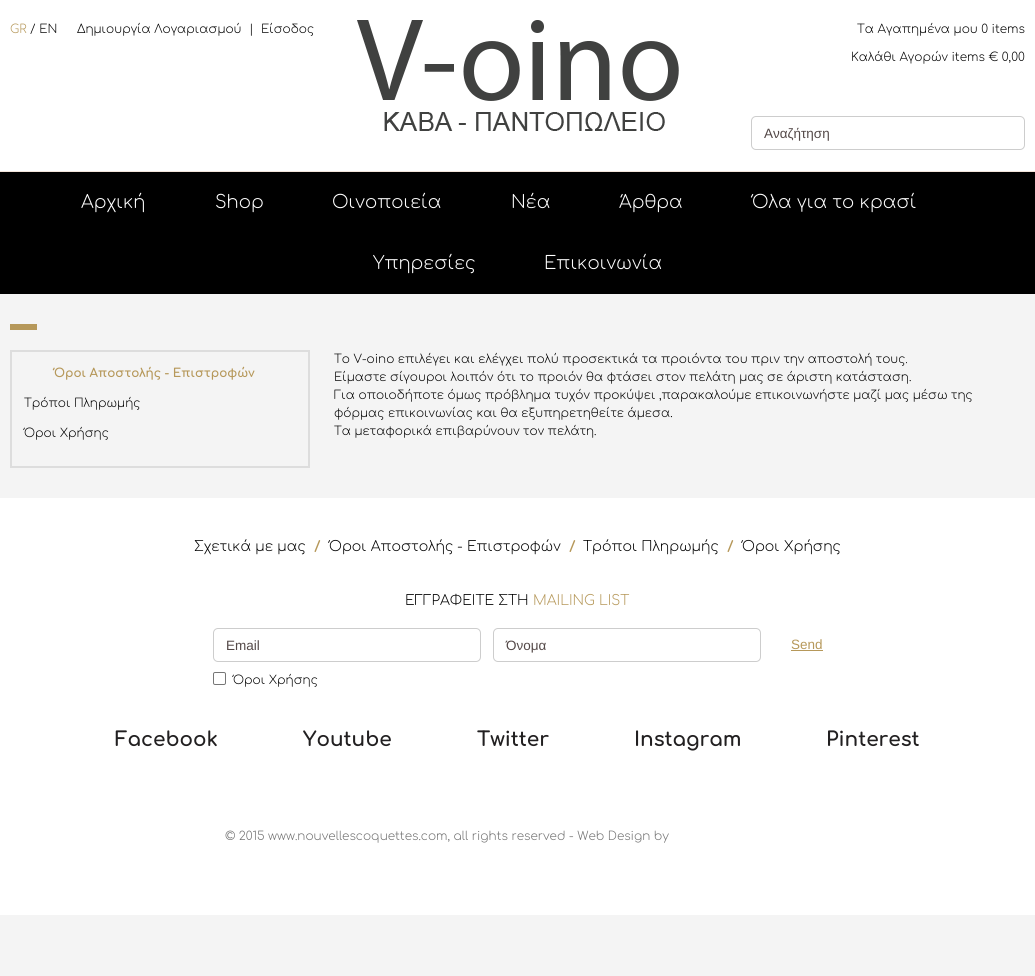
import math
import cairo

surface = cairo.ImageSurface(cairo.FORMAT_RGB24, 1035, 976)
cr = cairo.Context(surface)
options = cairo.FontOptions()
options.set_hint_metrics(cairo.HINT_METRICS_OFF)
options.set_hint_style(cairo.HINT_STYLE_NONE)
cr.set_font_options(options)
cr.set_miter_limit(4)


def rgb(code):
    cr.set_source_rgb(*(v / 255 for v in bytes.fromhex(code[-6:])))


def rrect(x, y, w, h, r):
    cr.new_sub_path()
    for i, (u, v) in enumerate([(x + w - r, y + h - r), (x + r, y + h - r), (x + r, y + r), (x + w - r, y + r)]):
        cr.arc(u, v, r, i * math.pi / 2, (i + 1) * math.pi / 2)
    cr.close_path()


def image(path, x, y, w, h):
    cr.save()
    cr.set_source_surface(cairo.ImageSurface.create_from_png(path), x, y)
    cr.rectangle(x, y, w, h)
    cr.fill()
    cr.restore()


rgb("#f4f4f4")
cr.paint()
rgb("#ffffff")
cr.rectangle(0, 0, 1035, 171)
cr.fill()
image("img/1.png", 357, 20, 322, 111)
rrect(751.5, 116.5, 273, 33, 4.5)
rgb("#cdcdcd")
cr.set_line_width(1)
cr.stroke()
for x, y, w, h, color in [
    (0, 172, 1035, 122, "#000000"),
    (0, 171, 1035, 1, "#f3e4da"),
    (10, 324, 27, 6, "#b6985a"),
]:
    rgb(color)
    cr.rectangle(x, y, w, h)
    cr.fill()
cr.rectangle(11, 351, 298, 116)
rgb("#dddddd")
cr.set_line_width(2)
cr.stroke()
rgb("#ffffff")
cr.rectangle(0, 498, 1035, 417)
cr.fill()
rrect(213.5, 628.5, 267, 33, 4.5)
rgb("#cdcdcd")
cr.set_line_width(1)
cr.stroke()
rrect(493.5, 628.5, 267, 33, 4.5)
cr.stroke()
rgb("#b6985a")
cr.rectangle(791, 650, 32, 1)
cr.fill()
rrect(213.5, 672.5, 12, 12, 1.5)
rgb("#767676")
cr.stroke()
cr.select_font_face("Comfortaa Light")
cr.set_font_size(12)
rgb("#b6985a")
cr.move_to(10, 33)
cr.show_text("GR")
rgb("#000000")
for x, y, s in [
    (30, 33, "/ EN"),
    (77, 33, "Δημιουργία Λογαριασμού"),
    (249, 33, "|"),
    (261, 33, "Είσοδος"),
    (857, 33, "Τα Αγαπημένα μου 0 items"),
    (851, 61, "Καλάθι Αγορών items € 0,00"),
]:
    cr.move_to(x, y)
    cr.show_text(s)
cr.select_font_face("Liberation Sans")
cr.set_font_size(13.5)
rgb("#534847")
cr.move_to(764, 138)
cr.show_text("Αναζήτηση")
cr.select_font_face("Comfortaa Light")
cr.set_font_size(18)
rgb("#ffffff")
for x, y, s in [
    (81, 208, "Αρχική"),
    (215, 208, "Shop"),
    (332, 208, "Οινοποιεία"),
    (511, 208, "Νέα"),
    (619, 208, "Άρθρα"),
    (752, 208, "Όλα για το κρασί"),
    (373, 269, "Υπηρεσίες"),
    (544, 269, "Επικοινωνία"),
]:
    cr.move_to(x, y)
    cr.show_text(s)
cr.select_font_face("Comfortaa", cairo.FONT_SLANT_NORMAL, cairo.FONT_WEIGHT_BOLD)
cr.set_font_size(12)
rgb("#b6985a")
cr.move_to(54, 377)
cr.show_text("Όροι Αποστολής - Επιστροφών")
cr.select_font_face("Comfortaa Light")
rgb("#000000")
for x, y, s in [
    (24, 407, "Τρόποι Πληρωμής"),
    (24, 437, "Όροι Χρήσης"),
    (334, 363, "Το V-oino επιλέγει και ελέγχει πολύ προσεκτικά τα προιόντα του πριν την αποστολή τους."),
    (334, 381, "Είμαστε σίγουροι λοιπόν ότι το προιόν θα φτάσει στον πελάτη μας σε άριστη κατάσταση."),
    (334, 399, "Για οποιοδήποτε όμως πρόβλημα τυχόν προκύψει ,παρακαλούμε επικοινωνήστε μαζί μας μέσω της"),
    (334, 417, "φόρμας επικοινωνίας και θα εξυπηρετηθείτε άμεσα."),
    (334, 435, "Τα μεταφορικά επιβαρύνουν τον πελάτη."),
]:
    cr.move_to(x, y)
    cr.show_text(s)
cr.set_font_size(14)
cr.move_to(194, 551)
cr.show_text("Σχετικά με μας")
cr.select_font_face("Comfortaa", cairo.FONT_SLANT_NORMAL, cairo.FONT_WEIGHT_BOLD)
rgb("#b6985a")
cr.move_to(314, 551)
cr.show_text("/")
cr.select_font_face("Comfortaa Light")
rgb("#000000")
cr.move_to(329, 551)
cr.show_text("Όροι Αποστολής - Επιστροφών")
cr.select_font_face("Comfortaa", cairo.FONT_SLANT_NORMAL, cairo.FONT_WEIGHT_BOLD)
rgb("#b6985a")
cr.move_to(569, 551)
cr.show_text("/")
cr.select_font_face("Comfortaa Light")
rgb("#000000")
cr.move_to(583, 551)
cr.show_text("Τρόποι Πληρωμής")
cr.select_font_face("Comfortaa", cairo.FONT_SLANT_NORMAL, cairo.FONT_WEIGHT_BOLD)
rgb("#b6985a")
cr.move_to(727, 551)
cr.show_text("/")
cr.select_font_face("Comfortaa Light")
rgb("#000000")
cr.move_to(742, 551)
cr.show_text("Όροι Χρήσης")
cr.move_to(405, 605)
cr.show_text("ΕΓΓΡΑΦΕΙΤΕ ΣΤΗ")
rgb("#b6985a")
cr.move_to(533, 605)
cr.show_text("MAILING LIST")
cr.select_font_face("Liberation Sans")
cr.set_font_size(13.5)
rgb("#534847")
cr.move_to(226, 650)
cr.show_text("Email")
cr.move_to(506, 650)
cr.show_text("Όνομα")
rgb("#b6985a")
cr.move_to(791, 649)
cr.show_text("Send")
cr.select_font_face("Comfortaa Light")
cr.set_font_size(12)
rgb("#000000")
cr.move_to(233, 684)
cr.show_text("Όροι Χρήσης")
cr.select_font_face("Comfortaa", cairo.FONT_SLANT_NORMAL, cairo.FONT_WEIGHT_BOLD)
cr.set_font_size(20)
rgb("#222021")
for x, y, s in [
    (115, 746, "Facebook"),
    (303, 746, "Youtube"),
    (477, 746, "Twitter"),
    (634, 746, "Instagram"),
    (826, 746, "Pinterest"),
]:
    cr.move_to(x, y)
    cr.show_text(s)
cr.select_font_face("Comfortaa Light")
cr.set_font_size(12)
rgb("#707070")
cr.move_to(225, 840)
cr.show_text("© 2015 www.nouvellescoquettes.com, all rights reserved - Web Design by")
surface.write_to_png("page.png")
